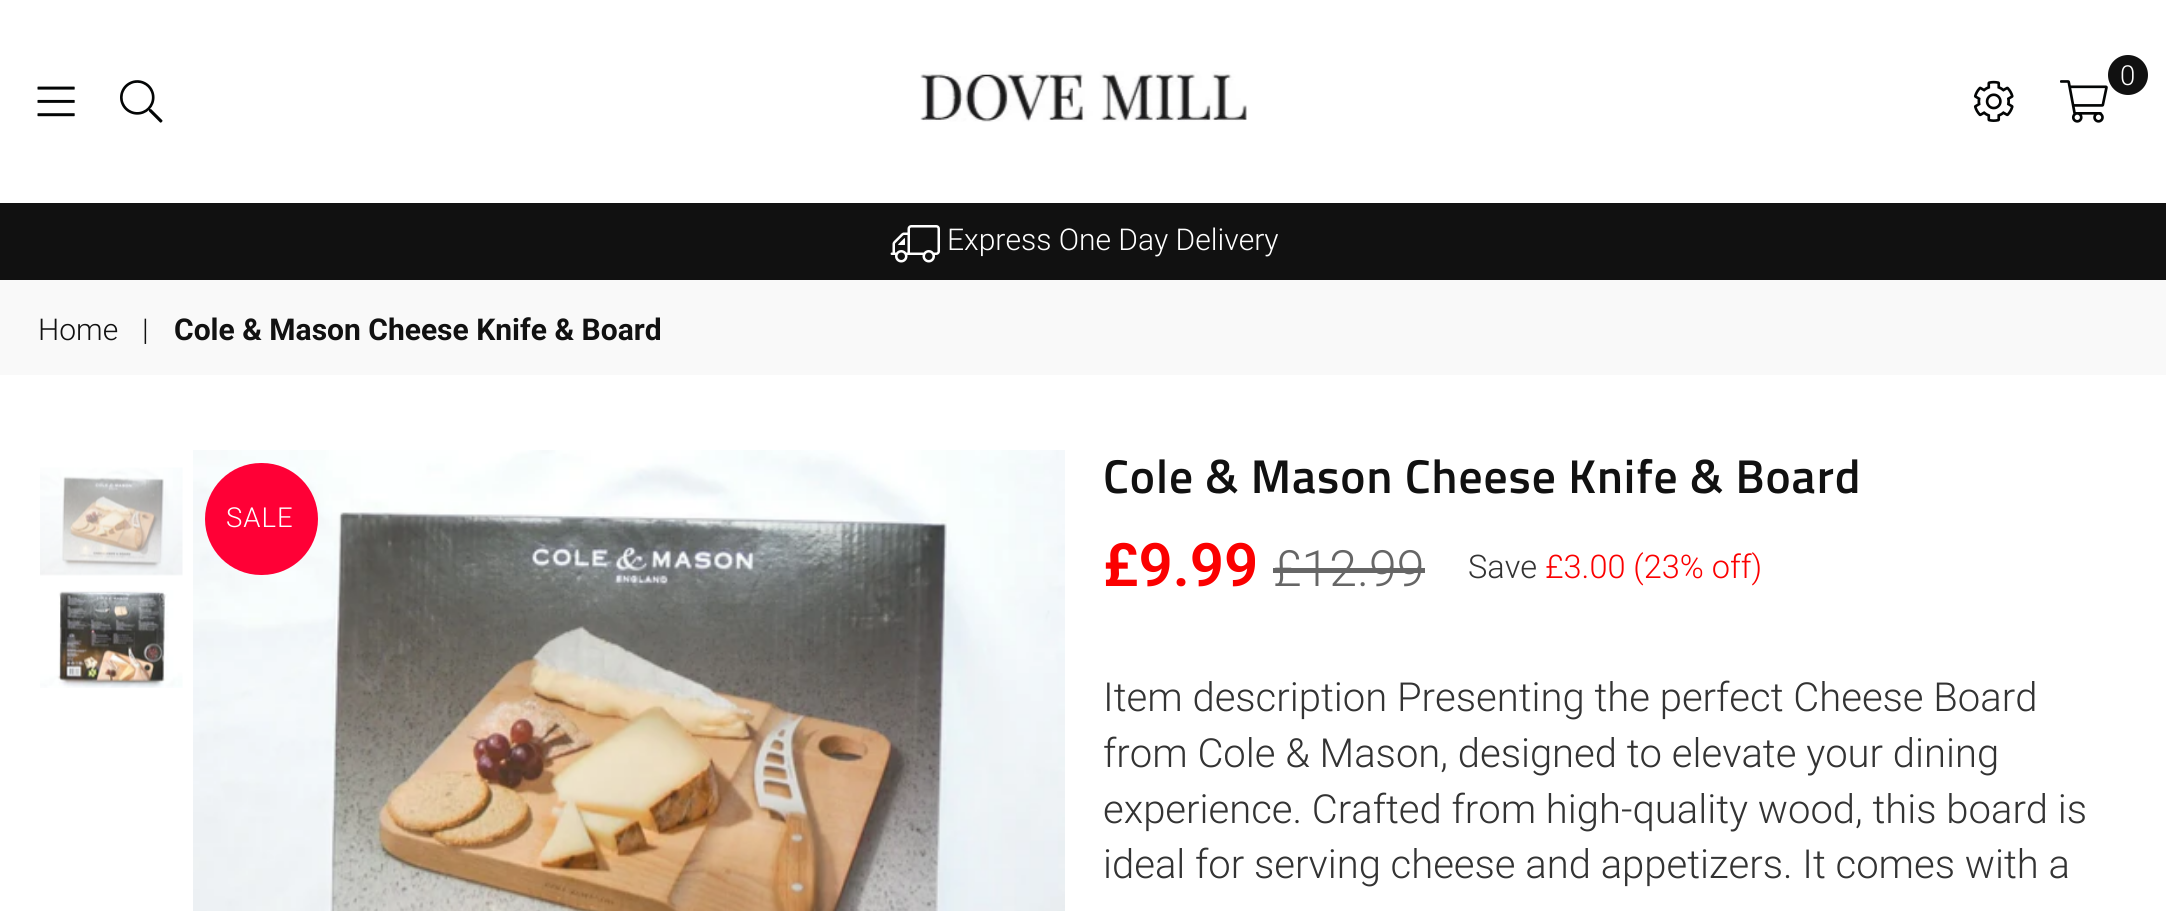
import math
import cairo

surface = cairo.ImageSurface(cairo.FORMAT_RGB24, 2166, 911)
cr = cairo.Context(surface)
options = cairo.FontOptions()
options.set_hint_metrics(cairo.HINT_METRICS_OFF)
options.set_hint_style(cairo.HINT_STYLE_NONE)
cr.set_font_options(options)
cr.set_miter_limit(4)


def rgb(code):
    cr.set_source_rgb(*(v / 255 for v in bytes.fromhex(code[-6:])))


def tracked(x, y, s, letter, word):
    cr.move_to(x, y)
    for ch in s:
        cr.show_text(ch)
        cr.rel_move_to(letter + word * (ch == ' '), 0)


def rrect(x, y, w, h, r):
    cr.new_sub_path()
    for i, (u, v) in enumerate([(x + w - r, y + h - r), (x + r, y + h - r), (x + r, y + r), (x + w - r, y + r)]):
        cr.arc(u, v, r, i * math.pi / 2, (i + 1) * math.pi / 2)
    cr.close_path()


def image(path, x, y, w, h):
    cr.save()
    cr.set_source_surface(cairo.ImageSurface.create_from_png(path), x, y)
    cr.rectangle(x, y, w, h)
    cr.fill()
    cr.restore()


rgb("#ffffff")
cr.paint()
image("img/1.png", 37, 86, 38, 31)
image("img/2.png", 120, 80, 43, 43)
image("img/3.png", 920, 71, 327, 51)
rgb("#111111")
cr.arc(2128, 75, 20, 0, 2 * math.pi)
cr.fill()
image("img/4.png", 2060, 80, 48, 43)
image("img/5.png", 1973, 80, 41, 42)
cr.rectangle(0, 203, 2166, 77)
cr.fill()
image("img/6.png", 890, 225, 50, 38)
rgb("#f9f9f9")
cr.rectangle(0, 280, 2166, 95)
cr.fill()
image("img/7.png", 40, 467, 143, 109)
image("img/8.png", 40, 590, 143, 98)
image("img/9.png", 193, 450, 872, 461)
rgb("#ff0036")
rrect(205, 463, 113, 112, 56)
cr.fill()
rgb("#666666")
cr.rectangle(1273, 568, 152, 5)
cr.fill()
cr.select_font_face("Roboto Light")
cr.set_font_size(27.5)
rgb("#ffffff")
cr.move_to(2120, 85)
cr.show_text("0")
cr.set_font_size(30)
cr.move_to(947, 250)
cr.show_text("Express One Day Delivery")
rgb("#111111")
cr.move_to(38, 340)
cr.show_text("Home")
cr.move_to(142, 340)
cr.show_text("|")
cr.select_font_face("Roboto", cairo.FONT_SLANT_NORMAL, cairo.FONT_WEIGHT_BOLD)
cr.move_to(174, 340)
cr.show_text("Cole & Mason Cheese Knife & Board")
cr.select_font_face("Roboto Light")
cr.set_font_size(27.5)
rgb("#ffffff")
tracked(226, 527, "SALE", 1, 0)
cr.select_font_face("Titillium Web SemiBold")
cr.set_font_size(47.5)
rgb("#111111")
tracked(1103, 493, "Cole & Mason Cheese Knife & Board", 0.95, 0)
cr.select_font_face("Roboto SemiBold")
cr.set_font_size(60)
rgb("#fb0000")
cr.move_to(1103, 586)
cr.show_text("£9.99")
cr.select_font_face("Roboto Light")
cr.set_font_size(50)
rgb("#666666")
cr.move_to(1273, 586)
cr.show_text("£12.99")
cr.set_font_size(32.5)
rgb("#333333")
cr.move_to(1468, 578)
cr.show_text("Save")
rgb("#fb0000")
cr.move_to(1545, 578)
cr.show_text("£3.00 (23% off)")
cr.set_font_size(40)
rgb("#333333")
for x, y, s in [
    (1103, 711, "Item description Presenting the perfect Cheese Board"),
    (1103, 767, "from Cole & Mason, designed to elevate your dining"),
    (1103, 823, "experience. Crafted from high-quality wood, this board is"),
    (1103, 878, "ideal for serving cheese and appetizers. It comes with a"),
]:
    cr.move_to(x, y)
    cr.show_text(s)
surface.write_to_png("page.png")
